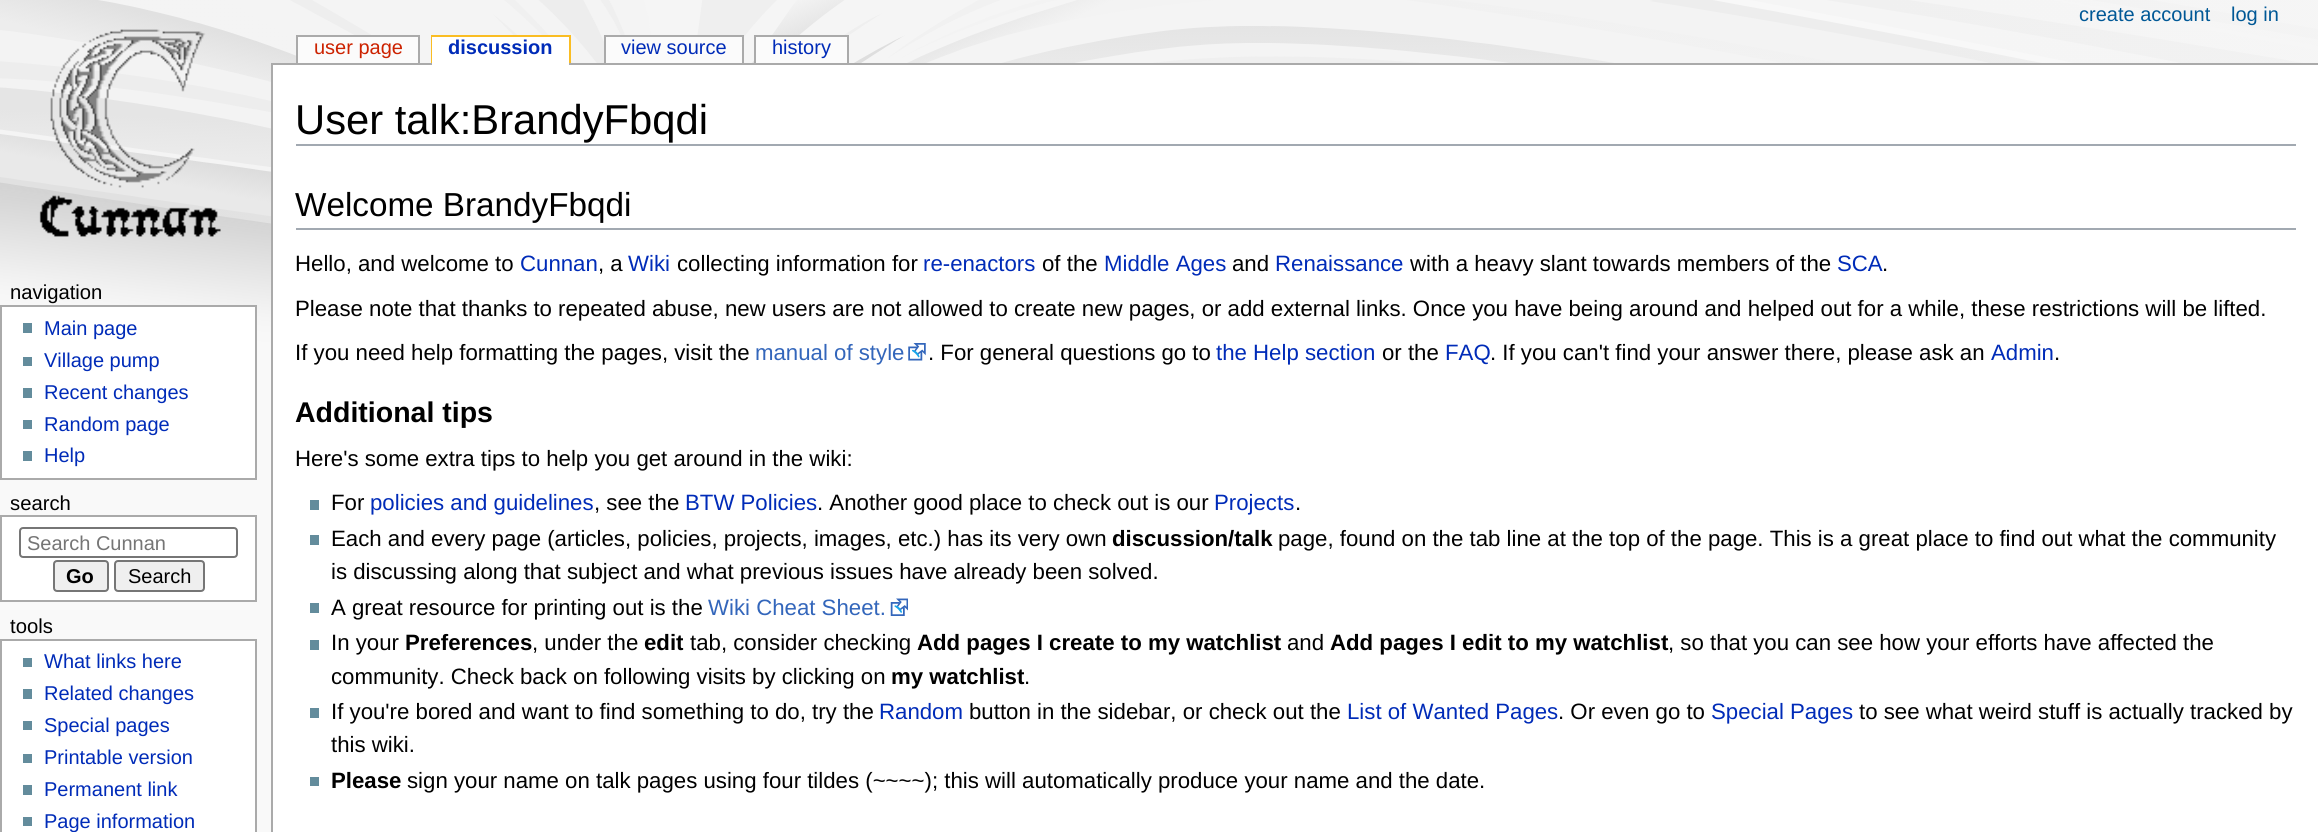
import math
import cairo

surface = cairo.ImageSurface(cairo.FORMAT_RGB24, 2318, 832)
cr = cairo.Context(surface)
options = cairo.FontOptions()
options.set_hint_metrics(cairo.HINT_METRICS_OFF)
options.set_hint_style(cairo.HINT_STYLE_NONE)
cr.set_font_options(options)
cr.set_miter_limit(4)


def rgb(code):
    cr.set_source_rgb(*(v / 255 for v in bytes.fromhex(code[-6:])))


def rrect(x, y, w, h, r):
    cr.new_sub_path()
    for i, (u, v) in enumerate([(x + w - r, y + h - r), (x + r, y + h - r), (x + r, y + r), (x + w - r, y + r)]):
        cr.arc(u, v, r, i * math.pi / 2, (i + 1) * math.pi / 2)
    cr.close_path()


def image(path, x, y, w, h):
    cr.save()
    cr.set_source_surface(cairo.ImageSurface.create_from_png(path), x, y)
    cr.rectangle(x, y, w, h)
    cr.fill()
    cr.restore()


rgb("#f9f9f9")
cr.paint()
image("img/1.png", 0, 0, 2318, 367)
image("img/2.png", 39, 29, 182, 208)
for x, y, w, h, color in [
    (296, 35, 124, 2, "#aaaaaa"),
    (418, 35, 2, 28, "#aaaaaa"),
    (296, 35, 2, 28, "#aaaaaa"),
    (298, 37, 120, 26, "#fbfbfb"),
    (431, 35, 140, 2, "#fabd23"),
    (569, 35, 2, 28, "#fabd23"),
    (431, 35, 2, 28, "#fabd23"),
    (271, 63, 2047, 2, "#aaaaaa"),
    (432, 37, 137, 28, "#ffffff"),
    (604, 35, 140, 2, "#aaaaaa"),
    (742, 35, 2, 28, "#aaaaaa"),
    (604, 35, 2, 28, "#aaaaaa"),
    (606, 37, 136, 26, "#fbfbfb"),
    (754, 35, 95, 2, "#aaaaaa"),
    (847, 35, 2, 28, "#aaaaaa"),
    (754, 35, 2, 28, "#aaaaaa"),
    (756, 37, 91, 26, "#fbfbfb"),
]:
    rgb(color)
    cr.rectangle(x, y, w, h)
    cr.fill()
rgb("#ffffff")
cr.rectangle(1, 306, 255, 173)
cr.fill_preserve()
rgb("#aaaaaa")
cr.stroke()
for x, y, w, h, color in [
    (23, 323, 9, 10, "#638c9c"),
    (23, 357, 9, 9, "#638c9c"),
    (23, 388, 9, 10, "#638c9c"),
    (23, 420, 9, 9, "#638c9c"),
    (23, 451, 9, 10, "#638c9c"),
]:
    rgb(color)
    cr.rectangle(x, y, w, h)
    cr.fill()
rgb("#ffffff")
cr.rectangle(1, 516, 255, 85)
cr.fill_preserve()
rgb("#aaaaaa")
cr.stroke()
rrect(20, 528, 217, 29, 3)
rgb("#767676")
cr.stroke()
rgb("#efefef")
rrect(54, 561, 54, 30, 3)
cr.fill_preserve()
rgb("#767676")
cr.stroke()
rgb("#efefef")
rrect(115, 561, 89, 30, 3)
cr.fill_preserve()
rgb("#767676")
cr.stroke()
rgb("#ffffff")
cr.rectangle(1, 640, 255, 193)
cr.fill_preserve()
rgb("#aaaaaa")
cr.stroke()
for x, y, w, h, color in [
    (23, 658, 9, 9, "#638c9c"),
    (23, 689, 9, 10, "#638c9c"),
    (23, 721, 9, 9, "#638c9c"),
    (23, 754, 9, 9, "#638c9c"),
    (23, 785, 9, 10, "#638c9c"),
    (23, 817, 9, 9, "#638c9c"),
    (273, 65, 2045, 767, "#ffffff"),
    (271, 63, 2, 769, "#aaaaaa"),
    (296, 144, 2000, 2, "#a2a9b1"),
    (296, 228, 2000, 2, "#a2a9b1"),
]:
    rgb(color)
    cr.rectangle(x, y, w, h)
    cr.fill()
image("img/3.png", 908, 343, 18, 18)
for x, y, w, h, color in [
    (310, 500, 9, 10, "#638c9c"),
    (310, 535, 9, 10, "#638c9c"),
    (310, 603, 9, 10, "#638c9c"),
]:
    rgb(color)
    cr.rectangle(x, y, w, h)
    cr.fill()
image("img/4.png", 890, 598, 18, 18)
for x, y, w, h, color in [
    (310, 640, 9, 10, "#638c9c"),
    (310, 708, 9, 10, "#638c9c"),
    (310, 777, 9, 9, "#638c9c"),
]:
    rgb(color)
    cr.rectangle(x, y, w, h)
    cr.fill()
cr.select_font_face("Liberation Sans")
cr.set_font_size(20)
rgb("#005896")
cr.move_to(2079, 21)
cr.show_text("create account")
cr.move_to(2231, 21)
cr.show_text("log in")
rgb("#cc2200")
cr.move_to(314, 54)
cr.show_text("user page")
cr.select_font_face("Liberation Sans", cairo.FONT_SLANT_NORMAL, cairo.FONT_WEIGHT_BOLD)
rgb("#002bb8")
cr.move_to(448, 54)
cr.show_text("discussion")
cr.select_font_face("Liberation Sans")
cr.move_to(621, 54)
cr.show_text("view source")
cr.move_to(772, 54)
cr.show_text("history")
cr.set_font_size(20.25)
rgb("#000000")
cr.move_to(10, 299)
cr.show_text("navigation")
cr.set_font_size(20)
rgb("#002bb8")
for x, y, s in [
    (44, 335, "Main page"),
    (44, 367, "Village pump"),
    (44, 399, "Recent changes"),
    (44, 431, "Random page"),
    (44, 462, "Help"),
]:
    cr.move_to(x, y)
    cr.show_text(s)
cr.set_font_size(20.25)
rgb("#000000")
cr.move_to(10, 510)
cr.show_text("search")
cr.set_font_size(20)
rgb("#757575")
cr.move_to(27, 550)
cr.show_text("Search Cunnan")
cr.select_font_face("Liberation Sans", cairo.FONT_SLANT_NORMAL, cairo.FONT_WEIGHT_BOLD)
rgb("#000000")
cr.move_to(66, 583)
cr.show_text("Go")
cr.select_font_face("Liberation Sans")
cr.move_to(128, 583)
cr.show_text("Search")
cr.set_font_size(20.25)
cr.move_to(10, 633)
cr.show_text("tools")
cr.set_font_size(20)
rgb("#002bb8")
for x, y, s in [
    (44, 668, "What links here"),
    (44, 700, "Related changes"),
    (44, 732, "Special pages"),
    (44, 764, "Printable version"),
    (44, 796, "Permanent link"),
    (44, 828, "Page information"),
]:
    cr.move_to(x, y)
    cr.show_text(s)
cr.set_font_size(41.75)
rgb("#000000")
cr.move_to(295, 134)
cr.show_text("User talk:BrandyFbqdi")
cr.set_font_size(33.25)
cr.move_to(295, 216)
cr.show_text("Welcome BrandyFbqdi")
cr.set_font_size(22.22)
cr.move_to(295, 271)
cr.show_text("Hello, and welcome to")
rgb("#002bb8")
cr.move_to(520, 271)
cr.show_text("Cunnan")
rgb("#000000")
cr.move_to(598, 271)
cr.show_text(", a")
rgb("#002bb8")
cr.move_to(628, 271)
cr.show_text("Wiki")
rgb("#000000")
cr.move_to(677, 271)
cr.show_text("collecting information for")
rgb("#002bb8")
cr.move_to(923, 271)
cr.show_text("re-enactors")
rgb("#000000")
cr.move_to(1042, 271)
cr.show_text("of the")
rgb("#002bb8")
cr.move_to(1104, 271)
cr.show_text("Middle Ages")
rgb("#000000")
cr.move_to(1232, 271)
cr.show_text("and")
rgb("#002bb8")
cr.move_to(1275, 271)
cr.show_text("Renaissance")
rgb("#000000")
cr.move_to(1410, 271)
cr.show_text("with a heavy slant towards members of the")
rgb("#002bb8")
cr.move_to(1837, 271)
cr.show_text("SCA")
rgb("#000000")
for x, y, s in [
    (1882, 271, "."),
    (295, 316, "Please note that thanks to repeated abuse, new users are not allowed to create new pages, or add external links. Once you have being around and helped out for a while, these restrictions will be lifted."),
    (295, 360, "If you need help formatting the pages, visit the"),
]:
    cr.move_to(x, y)
    cr.show_text(s)
rgb("#3366bb")
cr.move_to(755, 360)
cr.show_text("manual of style")
rgb("#000000")
cr.move_to(928, 360)
cr.show_text(". For general questions go to")
rgb("#002bb8")
cr.move_to(1216, 360)
cr.show_text("the Help section")
rgb("#000000")
cr.move_to(1382, 360)
cr.show_text("or the")
rgb("#002bb8")
cr.move_to(1445, 360)
cr.show_text("FAQ")
rgb("#000000")
cr.move_to(1490, 360)
cr.show_text(". If you can't find your answer there, please ask an")
rgb("#002bb8")
cr.move_to(1991, 360)
cr.show_text("Admin")
rgb("#000000")
cr.move_to(2054, 360)
cr.show_text(".")
cr.select_font_face("Liberation Sans", cairo.FONT_SLANT_NORMAL, cairo.FONT_WEIGHT_BOLD)
cr.set_font_size(28.5)
cr.move_to(295, 422)
cr.show_text("Additional tips")
cr.select_font_face("Liberation Sans")
cr.set_font_size(22.22)
cr.move_to(295, 466)
cr.show_text("Here's some extra tips to help you get around in the wiki:")
cr.move_to(331, 510)
cr.show_text("For")
rgb("#002bb8")
cr.move_to(370, 510)
cr.show_text("policies and guidelines")
rgb("#000000")
cr.move_to(594, 510)
cr.show_text(", see the")
rgb("#002bb8")
cr.move_to(685, 510)
cr.show_text("BTW Policies")
rgb("#000000")
cr.move_to(817, 510)
cr.show_text(". Another good place to check out is our")
rgb("#002bb8")
cr.move_to(1214, 510)
cr.show_text("Projects")
rgb("#000000")
cr.move_to(1295, 510)
cr.show_text(".")
cr.move_to(331, 546)
cr.show_text("Each and every page (articles, policies, projects, images, etc.) has its very own")
cr.select_font_face("Liberation Sans", cairo.FONT_SLANT_NORMAL, cairo.FONT_WEIGHT_BOLD)
cr.move_to(1112, 546)
cr.show_text("discussion/talk")
cr.select_font_face("Liberation Sans")
for x, y, s in [
    (1278, 546, "page, found on the tab line at the top of the page. This is a great place to find out what the community"),
    (331, 579, "is discussing along that subject and what previous issues have already been solved."),
    (331, 615, "A great resource for printing out is the"),
]:
    cr.move_to(x, y)
    cr.show_text(s)
rgb("#3366bb")
cr.move_to(708, 615)
cr.show_text("Wiki Cheat Sheet.")
rgb("#000000")
cr.move_to(331, 650)
cr.show_text("In your")
cr.select_font_face("Liberation Sans", cairo.FONT_SLANT_NORMAL, cairo.FONT_WEIGHT_BOLD)
cr.move_to(405, 650)
cr.show_text("Preferences")
cr.select_font_face("Liberation Sans")
cr.move_to(532, 650)
cr.show_text(", under the")
cr.select_font_face("Liberation Sans", cairo.FONT_SLANT_NORMAL, cairo.FONT_WEIGHT_BOLD)
cr.move_to(644, 650)
cr.show_text("edit")
cr.select_font_face("Liberation Sans")
cr.move_to(690, 650)
cr.show_text("tab, consider checking")
cr.select_font_face("Liberation Sans", cairo.FONT_SLANT_NORMAL, cairo.FONT_WEIGHT_BOLD)
cr.move_to(917, 650)
cr.show_text("Add pages I create to my watchlist")
cr.select_font_face("Liberation Sans")
cr.move_to(1287, 650)
cr.show_text("and")
cr.select_font_face("Liberation Sans", cairo.FONT_SLANT_NORMAL, cairo.FONT_WEIGHT_BOLD)
cr.move_to(1330, 650)
cr.show_text("Add pages I edit to my watchlist")
cr.select_font_face("Liberation Sans")
cr.move_to(1668, 650)
cr.show_text(", so that you can see how your efforts have affected the")
cr.move_to(331, 684)
cr.show_text("community. Check back on following visits by clicking on")
cr.select_font_face("Liberation Sans", cairo.FONT_SLANT_NORMAL, cairo.FONT_WEIGHT_BOLD)
cr.move_to(891, 684)
cr.show_text("my watchlist")
cr.select_font_face("Liberation Sans")
cr.move_to(1024, 684)
cr.show_text(".")
cr.move_to(331, 719)
cr.show_text("If you're bored and want to find something to do, try the")
rgb("#002bb8")
cr.move_to(879, 719)
cr.show_text("Random")
rgb("#000000")
cr.move_to(969, 719)
cr.show_text("button in the sidebar, or check out the")
rgb("#002bb8")
cr.move_to(1347, 719)
cr.show_text("List of Wanted Pages")
rgb("#000000")
cr.move_to(1558, 719)
cr.show_text(". Or even go to")
rgb("#002bb8")
cr.move_to(1711, 719)
cr.show_text("Special Pages")
rgb("#000000")
cr.move_to(1859, 719)
cr.show_text("to see what weird stuff is actually tracked by")
cr.move_to(331, 752)
cr.show_text("this wiki.")
cr.select_font_face("Liberation Sans", cairo.FONT_SLANT_NORMAL, cairo.FONT_WEIGHT_BOLD)
cr.move_to(331, 788)
cr.show_text("Please")
cr.select_font_face("Liberation Sans")
cr.move_to(407, 788)
cr.show_text("sign your name on talk pages using four tildes (~~~~); this will automatically produce your name and the date.")
surface.write_to_png("page.png")
